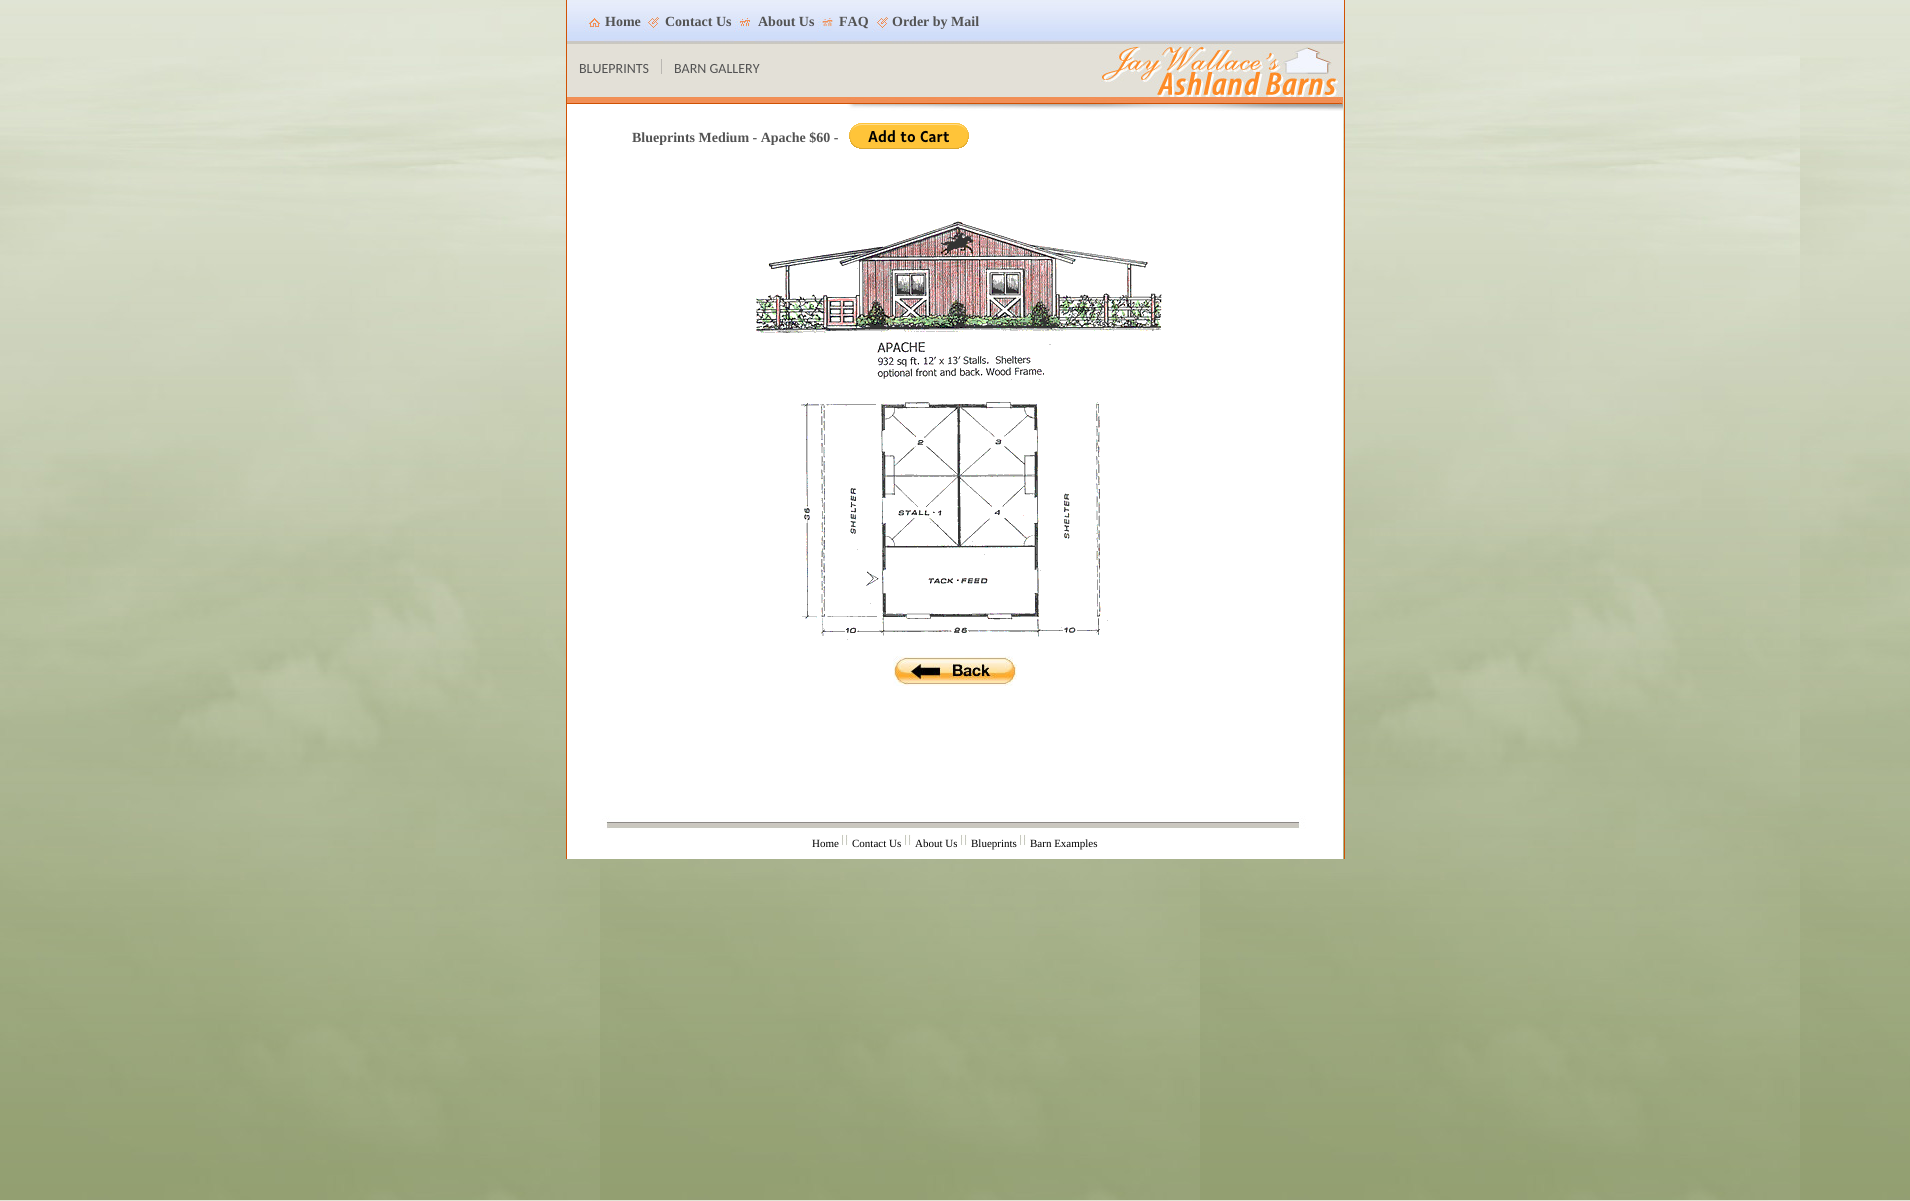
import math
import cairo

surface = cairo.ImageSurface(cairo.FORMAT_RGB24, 1910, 1201)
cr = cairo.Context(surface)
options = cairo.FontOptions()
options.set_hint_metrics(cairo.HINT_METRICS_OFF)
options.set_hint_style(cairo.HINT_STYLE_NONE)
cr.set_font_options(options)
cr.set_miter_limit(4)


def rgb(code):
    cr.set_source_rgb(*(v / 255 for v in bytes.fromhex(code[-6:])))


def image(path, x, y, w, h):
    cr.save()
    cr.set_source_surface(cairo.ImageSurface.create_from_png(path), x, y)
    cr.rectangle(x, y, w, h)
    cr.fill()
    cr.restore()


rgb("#ffffff")
cr.paint()
image("img/1.png", 0, 0, 1910, 1201)
rgb("#d15203")
cr.rectangle(1344, 0, 1, 859)
cr.fill()
cr.rectangle(566, 0, 1, 859)
cr.fill()
image("img/2.png", 567, 0, 17, 44)
image("img/3.png", 584, 0, 20, 44)
image("img/4.png", 604, 0, 39, 44)
image("img/5.png", 643, 0, 20, 44)
image("img/6.png", 663, 0, 71, 44)
image("img/7.png", 734, 0, 21, 44)
image("img/8.png", 755, 0, 62, 44)
image("img/9.png", 817, 0, 20, 44)
image("img/10.png", 837, 0, 35, 44)
image("img/5.png", 872, 0, 20, 44)
image("img/11.png", 892, 0, 87, 44)
image("img/12.png", 979, 0, 73, 44)
image("img/13.png", 1052, 0, 292, 43)
rgb("#e3e0d7")
cr.rectangle(567, 44, 485, 53)
cr.fill()
rgb("#bab7b2")
cr.rectangle(661, 59, 1, 15)
cr.fill()
image("img/14.png", 1052, 43, 291, 54)
image("img/15.png", 567, 97, 776, 14)
rgb("#ffffff")
cr.rectangle(567, 111, 776, 748)
cr.fill()
image("img/16.png", 849, 123, 120, 26)
image("img/17.png", 756, 221, 406, 419)
image("img/18.png", 893, 656, 124, 30)
image("img/19.png", 602, 816, 704, 13)
image("img/20.png", 842, 834, 6, 12)
image("img/20.png", 905, 834, 6, 12)
image("img/20.png", 961, 834, 6, 12)
image("img/20.png", 1020, 834, 6, 12)
cr.select_font_face("Liberation Serif", cairo.FONT_SLANT_NORMAL, cairo.FONT_WEIGHT_BOLD)
cr.set_font_size(14)
rgb("#535353")
for x, y, s in [
    (605, 26, "Home"),
    (665, 26, "Contact Us"),
    (758, 26, "About Us"),
    (839, 26, "FAQ"),
    (892, 26, "Order by Mail"),
]:
    cr.move_to(x, y)
    cr.show_text(s)
cr.select_font_face("Carlito")
cr.move_to(579, 73)
cr.show_text("BLUEPRINTS")
cr.move_to(674, 73)
cr.show_text("BARN GALLERY")
cr.select_font_face("Liberation Serif", cairo.FONT_SLANT_NORMAL, cairo.FONT_WEIGHT_BOLD)
cr.move_to(632, 142)
cr.show_text("Blueprints Medium - Apache $60 -")
cr.select_font_face("Liberation Serif")
cr.set_font_size(11)
rgb("#000000")
for x, y, s in [
    (812, 847, "Home"),
    (852, 847, "Contact Us"),
    (915, 847, "About Us"),
    (971, 847, "Blueprints"),
    (1030, 847, "Barn Examples"),
]:
    cr.move_to(x, y)
    cr.show_text(s)
surface.write_to_png("page.png")
